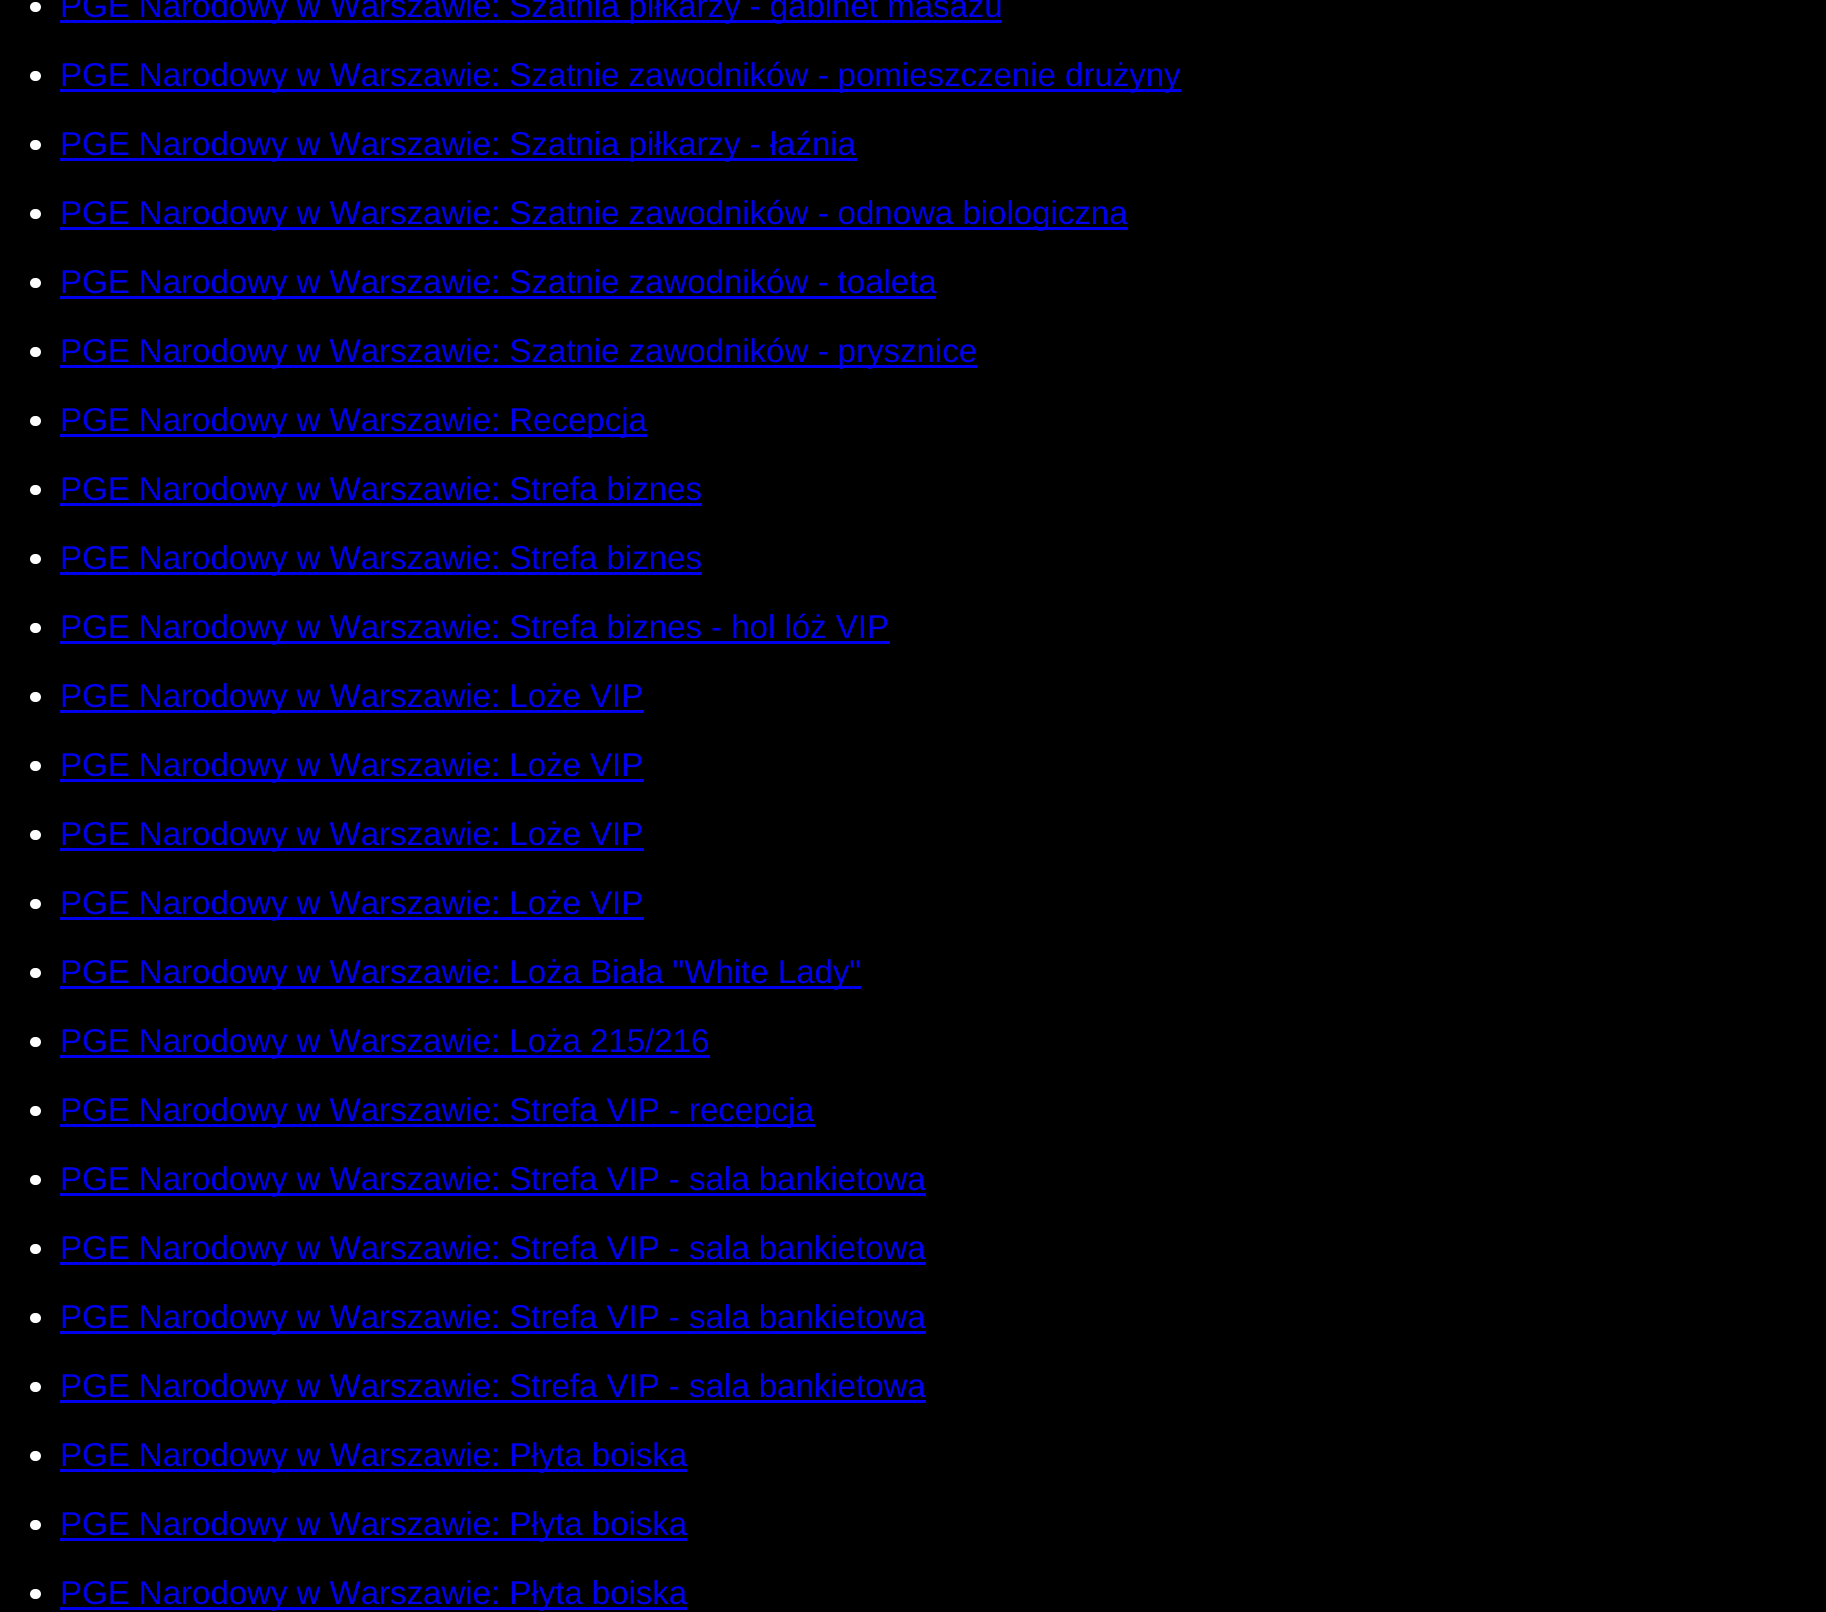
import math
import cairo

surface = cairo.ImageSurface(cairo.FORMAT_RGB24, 1826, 1612)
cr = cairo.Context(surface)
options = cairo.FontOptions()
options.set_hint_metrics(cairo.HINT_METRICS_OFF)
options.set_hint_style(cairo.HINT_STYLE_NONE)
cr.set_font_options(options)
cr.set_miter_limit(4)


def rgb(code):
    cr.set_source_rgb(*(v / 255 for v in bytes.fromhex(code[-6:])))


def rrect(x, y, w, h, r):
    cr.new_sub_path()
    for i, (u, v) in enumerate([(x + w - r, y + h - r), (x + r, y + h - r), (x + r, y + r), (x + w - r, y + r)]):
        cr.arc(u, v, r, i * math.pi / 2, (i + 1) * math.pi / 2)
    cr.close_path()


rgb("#000000")
cr.paint()
rgb("#ffffff")
rrect(30, 2, 11, 10, 5)
cr.fill()
rgb("#0000ee")
cr.rectangle(60, 20, 942, 3)
cr.fill()
rgb("#ffffff")
rrect(30, 71, 11, 10, 5)
cr.fill()
rgb("#0000ee")
cr.rectangle(60, 89, 1121, 3)
cr.fill()
rgb("#ffffff")
rrect(30, 140, 11, 10, 5)
cr.fill()
rgb("#0000ee")
cr.rectangle(60, 158, 797, 3)
cr.fill()
rgb("#ffffff")
rrect(30, 209, 11, 10, 5)
cr.fill()
rgb("#0000ee")
cr.rectangle(60, 227, 1068, 3)
cr.fill()
rgb("#ffffff")
rrect(30, 278, 11, 10, 5)
cr.fill()
rgb("#0000ee")
cr.rectangle(60, 296, 876, 3)
cr.fill()
rgb("#ffffff")
rrect(30, 347, 11, 10, 5)
cr.fill()
rgb("#0000ee")
cr.rectangle(60, 365, 917, 3)
cr.fill()
rgb("#ffffff")
rrect(30, 416, 11, 10, 5)
cr.fill()
rgb("#0000ee")
cr.rectangle(60, 434, 587, 3)
cr.fill()
rgb("#ffffff")
rrect(30, 485, 11, 10, 5)
cr.fill()
rgb("#0000ee")
cr.rectangle(60, 503, 642, 3)
cr.fill()
rgb("#ffffff")
rrect(30, 554, 11, 10, 5)
cr.fill()
rgb("#0000ee")
cr.rectangle(60, 572, 642, 3)
cr.fill()
rgb("#ffffff")
rrect(30, 623, 11, 10, 5)
cr.fill()
rgb("#0000ee")
cr.rectangle(60, 641, 830, 3)
cr.fill()
rgb("#ffffff")
rrect(30, 692, 11, 10, 5)
cr.fill()
rgb("#0000ee")
cr.rectangle(60, 710, 584, 3)
cr.fill()
rgb("#ffffff")
rrect(30, 761, 11, 10, 5)
cr.fill()
rgb("#0000ee")
cr.rectangle(60, 779, 584, 3)
cr.fill()
rgb("#ffffff")
rrect(30, 830, 11, 10, 5)
cr.fill()
rgb("#0000ee")
cr.rectangle(60, 848, 584, 3)
cr.fill()
rgb("#ffffff")
rrect(30, 899, 11, 10, 5)
cr.fill()
rgb("#0000ee")
cr.rectangle(60, 917, 584, 3)
cr.fill()
rgb("#ffffff")
rrect(30, 968, 11, 10, 5)
cr.fill()
rgb("#0000ee")
cr.rectangle(60, 986, 801, 3)
cr.fill()
rgb("#ffffff")
rrect(30, 1037, 11, 10, 5)
cr.fill()
rgb("#0000ee")
cr.rectangle(60, 1055, 650, 3)
cr.fill()
rgb("#ffffff")
rrect(30, 1106, 11, 10, 5)
cr.fill()
rgb("#0000ee")
cr.rectangle(60, 1124, 755, 3)
cr.fill()
rgb("#ffffff")
rrect(30, 1175, 11, 10, 5)
cr.fill()
rgb("#0000ee")
cr.rectangle(60, 1193, 866, 3)
cr.fill()
rgb("#ffffff")
rrect(30, 1244, 11, 10, 5)
cr.fill()
rgb("#0000ee")
cr.rectangle(60, 1262, 866, 3)
cr.fill()
rgb("#ffffff")
rrect(30, 1313, 11, 10, 5)
cr.fill()
rgb("#0000ee")
cr.rectangle(60, 1331, 866, 3)
cr.fill()
rgb("#ffffff")
rrect(30, 1382, 11, 10, 5)
cr.fill()
rgb("#0000ee")
cr.rectangle(60, 1400, 866, 3)
cr.fill()
rgb("#ffffff")
rrect(30, 1451, 11, 10, 5)
cr.fill()
rgb("#0000ee")
cr.rectangle(60, 1469, 627, 3)
cr.fill()
rgb("#ffffff")
rrect(30, 1520, 11, 10, 5)
cr.fill()
rgb("#0000ee")
cr.rectangle(60, 1538, 627, 3)
cr.fill()
rgb("#ffffff")
rrect(30, 1589, 11, 10, 5)
cr.fill()
rgb("#0000ee")
cr.rectangle(60, 1607, 627, 3)
cr.fill()
cr.select_font_face("Liberation Sans")
cr.set_font_size(33)
for x, y, s in [
    (60, 17, "PGE Narodowy w Warszawie: Szatnia piłkarzy - gabinet masażu"),
    (60, 86, "PGE Narodowy w Warszawie: Szatnie zawodników - pomieszczenie drużyny"),
    (60, 155, "PGE Narodowy w Warszawie: Szatnia piłkarzy - łaźnia"),
    (60, 224, "PGE Narodowy w Warszawie: Szatnie zawodników - odnowa biologiczna"),
    (60, 293, "PGE Narodowy w Warszawie: Szatnie zawodników - toaleta"),
    (60, 362, "PGE Narodowy w Warszawie: Szatnie zawodników - prysznice"),
    (60, 431, "PGE Narodowy w Warszawie: Recepcja"),
    (60, 500, "PGE Narodowy w Warszawie: Strefa biznes"),
    (60, 569, "PGE Narodowy w Warszawie: Strefa biznes"),
    (60, 638, "PGE Narodowy w Warszawie: Strefa biznes - hol lóż VIP"),
    (60, 707, "PGE Narodowy w Warszawie: Loże VIP"),
    (60, 776, "PGE Narodowy w Warszawie: Loże VIP"),
    (60, 845, "PGE Narodowy w Warszawie: Loże VIP"),
    (60, 914, "PGE Narodowy w Warszawie: Loże VIP"),
    (60, 983, "PGE Narodowy w Warszawie: Loża Biała \"White Lady\""),
    (60, 1052, "PGE Narodowy w Warszawie: Loża 215/216"),
    (60, 1121, "PGE Narodowy w Warszawie: Strefa VIP - recepcja"),
    (60, 1190, "PGE Narodowy w Warszawie: Strefa VIP - sala bankietowa"),
    (60, 1259, "PGE Narodowy w Warszawie: Strefa VIP - sala bankietowa"),
    (60, 1328, "PGE Narodowy w Warszawie: Strefa VIP - sala bankietowa"),
    (60, 1397, "PGE Narodowy w Warszawie: Strefa VIP - sala bankietowa"),
    (60, 1466, "PGE Narodowy w Warszawie: Płyta boiska"),
    (60, 1535, "PGE Narodowy w Warszawie: Płyta boiska"),
    (60, 1604, "PGE Narodowy w Warszawie: Płyta boiska"),
]:
    cr.move_to(x, y)
    cr.show_text(s)
surface.write_to_png("page.png")
